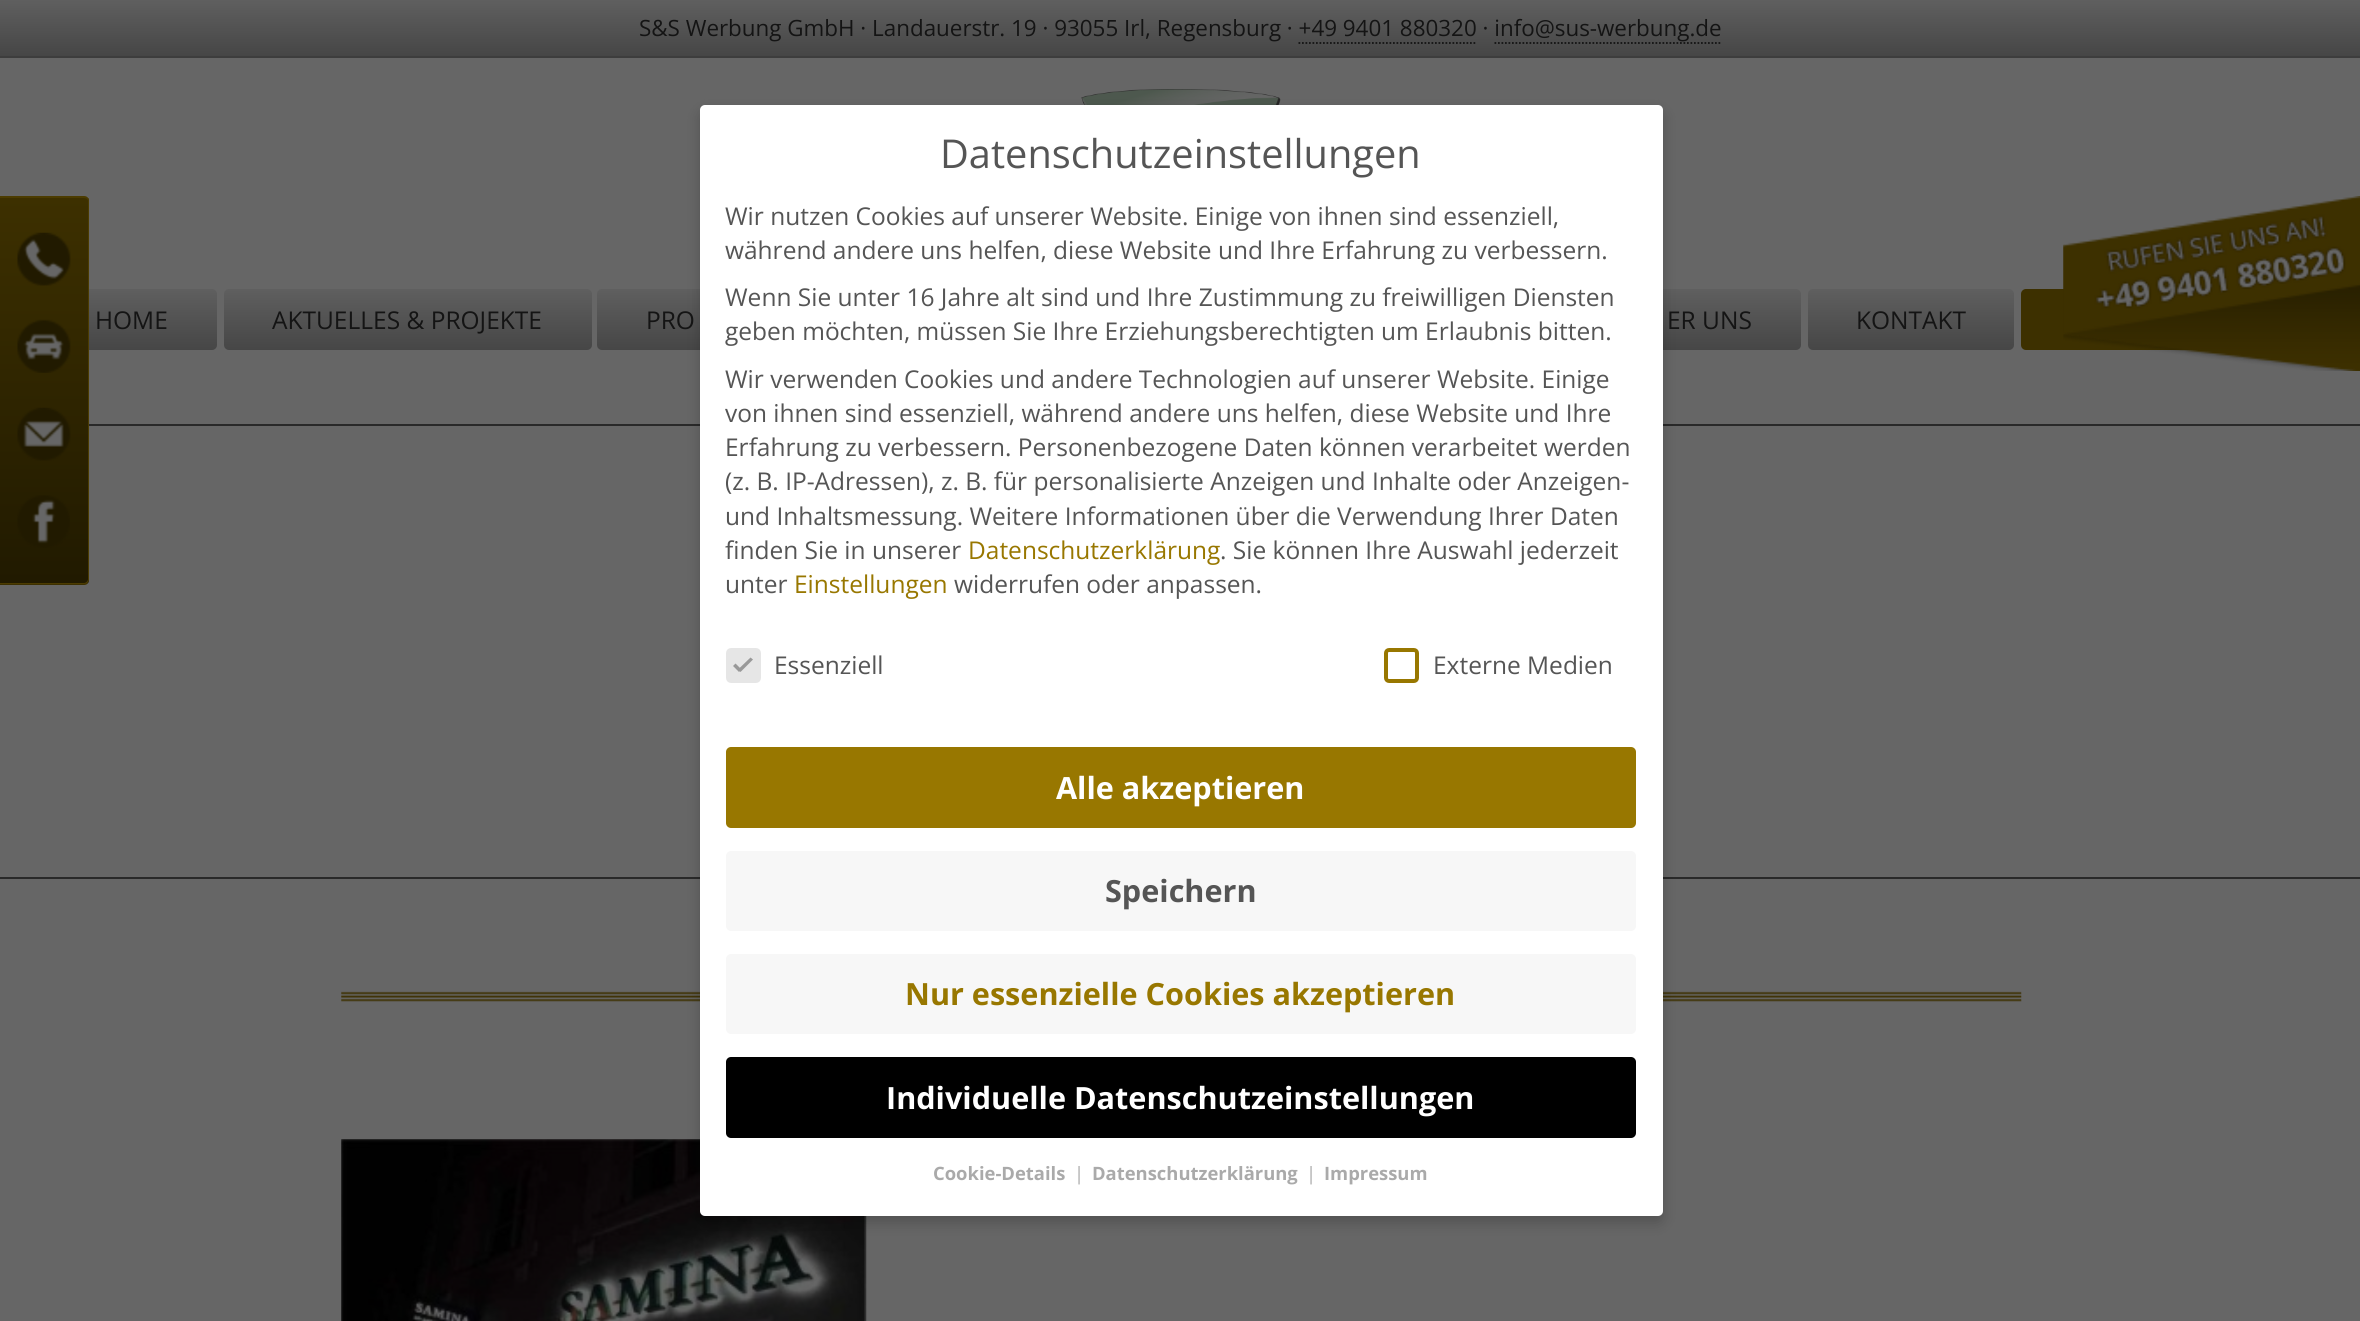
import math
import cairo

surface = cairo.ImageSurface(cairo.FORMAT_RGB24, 2360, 1321)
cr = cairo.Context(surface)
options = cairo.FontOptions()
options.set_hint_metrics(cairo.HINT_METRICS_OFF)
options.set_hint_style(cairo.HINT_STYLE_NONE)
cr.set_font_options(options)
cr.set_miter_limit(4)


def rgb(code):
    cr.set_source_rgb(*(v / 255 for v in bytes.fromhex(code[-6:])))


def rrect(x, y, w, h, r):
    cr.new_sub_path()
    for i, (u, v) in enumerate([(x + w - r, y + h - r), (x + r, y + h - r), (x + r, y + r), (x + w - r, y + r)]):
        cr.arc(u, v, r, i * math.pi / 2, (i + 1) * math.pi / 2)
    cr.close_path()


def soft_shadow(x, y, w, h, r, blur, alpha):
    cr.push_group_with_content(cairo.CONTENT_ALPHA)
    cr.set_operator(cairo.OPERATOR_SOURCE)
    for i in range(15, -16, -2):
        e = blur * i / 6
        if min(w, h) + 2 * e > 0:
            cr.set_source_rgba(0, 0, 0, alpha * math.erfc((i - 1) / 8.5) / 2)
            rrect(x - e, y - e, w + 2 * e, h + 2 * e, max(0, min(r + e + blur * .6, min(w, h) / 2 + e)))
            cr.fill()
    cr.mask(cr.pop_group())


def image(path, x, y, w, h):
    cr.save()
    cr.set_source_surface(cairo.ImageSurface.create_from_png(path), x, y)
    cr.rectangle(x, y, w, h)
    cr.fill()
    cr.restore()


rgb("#666666")
cr.paint()
gradient = cairo.LinearGradient(1180, 0, 1180, 56)
gradient.add_color_stop_rgba(0, 0.373, 0.373, 0.373, 1)
gradient.add_color_stop_rgba(1, 0.275, 0.275, 0.275, 1)
cr.set_source(gradient)
cr.rectangle(0, 0, 2360, 56)
cr.fill()
rgb("#3d3d3d")
cr.rectangle(0, 56, 2360, 2)
cr.fill()
cr.new_path()
cr.move_to(1298.5, 43)
cr.line_to(1477, 43)
rgb("#141414")
cr.set_line_width(1.8)
cr.set_dash([1.75, 1.75])
cr.stroke()
cr.new_path()
cr.move_to(1494.5, 43)
cr.line_to(1722, 43)
cr.stroke()
image("img/1.png", 1081, 89, 200, 16)
gradient = cairo.LinearGradient(131, 289, 131, 350)
gradient.add_color_stop_rgba(0, 0.373, 0.373, 0.373, 1)
gradient.add_color_stop_rgba(1, 0.275, 0.275, 0.275, 1)
cr.set_source(gradient)
rrect(46, 289, 171, 61, 5)
cr.fill()
gradient = cairo.LinearGradient(408, 289, 408, 350)
gradient.add_color_stop_rgba(0, 0.373, 0.373, 0.373, 1)
gradient.add_color_stop_rgba(1, 0.275, 0.275, 0.275, 1)
cr.set_source(gradient)
rrect(224, 289, 368, 61, 5)
cr.fill()
gradient = cairo.LinearGradient(710, 289, 710, 350)
gradient.add_color_stop_rgba(0, 0.373, 0.373, 0.373, 1)
gradient.add_color_stop_rgba(1, 0.275, 0.275, 0.275, 1)
cr.set_source(gradient)
rrect(597, 289, 226, 61, 5)
cr.fill()
gradient = cairo.LinearGradient(1692, 289, 1692, 350)
gradient.add_color_stop_rgba(0, 0.373, 0.373, 0.373, 1)
gradient.add_color_stop_rgba(1, 0.275, 0.275, 0.275, 1)
cr.set_source(gradient)
rrect(1584, 289, 217, 61, 5)
cr.fill()
gradient = cairo.LinearGradient(1911, 289, 1911, 350)
gradient.add_color_stop_rgba(0, 0.373, 0.373, 0.373, 1)
gradient.add_color_stop_rgba(1, 0.275, 0.275, 0.275, 1)
cr.set_source(gradient)
rrect(1808, 289, 206, 61, 5)
cr.fill()
rgb("#3d3000")
rrect(2021, 289, 294, 61, 5)
cr.fill()
cr.save()
cr.new_path()
cr.move_to(0, 196)
cr.line_to(84, 196)
cr.curve_to(87, 196, 89, 198, 89, 201)
cr.line_to(89, 580)
cr.curve_to(89, 583, 87, 585, 84, 585)
cr.line_to(0, 585)
cr.close_path()
cr.clip()
gradient = cairo.LinearGradient(44, 198, 44, 583)
gradient.add_color_stop_rgba(0, 0.239, 0.188, 0, 1)
gradient.add_color_stop_rgba(1, 0.129, 0.102, 0, 1)
cr.set_source(gradient)
cr.rectangle(0, 198, 89, 385)
cr.fill()
gradient = cairo.LinearGradient(44, 583, 44, 968)
gradient.add_color_stop_rgba(0, 0.239, 0.188, 0, 1)
gradient.add_color_stop_rgba(1, 0.129, 0.102, 0, 1)
cr.set_source(gradient)
cr.rectangle(0, 583, 89, 2)
cr.fill()
cr.restore()
rgb("#4c3c01")
cr.set_fill_rule(cairo.FILL_RULE_EVEN_ODD)
cr.new_path()
cr.move_to(0, 196)
cr.line_to(84, 196)
cr.curve_to(87, 196, 89, 198, 89, 201)
cr.line_to(89, 579)
cr.curve_to(89, 582, 87, 584, 84, 584)
cr.line_to(0, 584)
cr.close_path()
cr.move_to(0, 198)
cr.line_to(84, 198)
cr.curve_to(86, 198, 88, 199, 88, 201)
cr.line_to(88, 579)
cr.curve_to(88, 581, 86, 583, 84, 583)
cr.line_to(0, 583)
cr.close_path()
cr.fill()
image("img/2.png", 17, 232, 54, 54)
image("img/3.png", 17, 319, 54, 54)
image("img/4.png", 17, 407, 54, 54)
image("img/5.png", 17, 495, 53, 53)
rgb("#292929")
cr.rectangle(89, 424, 2271, 2)
cr.fill()
cr.rectangle(0, 877, 2360, 2)
cr.fill()
image("img/7.png", 341, 991, 1681, 11)
image("img/8.png", 341, 1139, 526, 182)
rgb("#000000")
soft_shadow(700, 112, 963, 1111, 5, 7, 0.2)
rgb("#ffffff")
rrect(700, 105, 963, 1111, 5)
cr.fill()
rgb("#e6e6e6")
rrect(728, 650, 31, 31, 3)
cr.fill_preserve()
cr.set_line_width(4)
cr.set_dash([])
cr.stroke()
rgb("#999999")
cr.set_fill_rule(cairo.FILL_RULE_WINDING)
cr.new_path()
cr.move_to(750.5, 657.5)
cr.line_to(753, 659.5)
cr.line_to(740.5, 672)
cr.line_to(738, 669.5)
cr.close_path()
cr.fill()
cr.new_path()
cr.move_to(735.5, 663.5)
cr.line_to(741.5, 669.5)
cr.line_to(739, 672)
cr.line_to(733, 666)
cr.close_path()
cr.fill()
rrect(1386, 650, 31, 31, 3)
rgb("#987700")
cr.stroke()
rrect(726, 747, 910, 81, 5)
cr.fill()
rgb("#f7f7f7")
rrect(726, 851, 910, 80, 5)
cr.fill()
rrect(726, 954, 910, 80, 5)
cr.fill()
rgb("#000000")
rrect(726, 1057, 910, 81, 5)
cr.fill()
image("img/6.png", 2063, 196, 297, 175)
cr.select_font_face("Open Sans")
cr.set_font_size(22.4)
rgb("#141414")
cr.move_to(639, 36)
cr.show_text("S&S Werbung GmbH · Landauerstr. 19 · 93055 Irl, Regensburg · +49 9401 880320 · info@sus-werbung.de")
cr.set_font_size(24.5)
for x, y, s in [
    (95, 329, "HOME"),
    (272, 329, "AKTUELLES & PROJEKTE"),
    (646, 329, "PRO"),
    (1667, 329, "ER UNS"),
    (1856, 329, "KONTAKT"),
]:
    cr.move_to(x, y)
    cr.show_text(s)
cr.set_font_size(39.75)
rgb("#555555")
cr.move_to(940, 168)
cr.show_text("Datenschutzeinstellungen")
cr.set_font_size(24.5)
for x, y, s in [
    (725, 225, "Wir nutzen Cookies auf unserer Website. Einige von ihnen sind essenziell,"),
    (725, 259, "während andere uns helfen, diese Website und Ihre Erfahrung zu verbessern."),
    (725, 306, "Wenn Sie unter 16 Jahre alt sind und Ihre Zustimmung zu freiwilligen Diensten"),
    (725, 340, "geben möchten, müssen Sie Ihre Erziehungsberechtigten um Erlaubnis bitten."),
    (725, 388, "Wir verwenden Cookies und andere Technologien auf unserer Website. Einige"),
    (725, 422, "von ihnen sind essenziell, während andere uns helfen, diese Website und Ihre"),
    (725, 456, "Erfahrung zu verbessern. Personenbezogene Daten können verarbeitet werden"),
    (725, 490, "(z. B. IP-Adressen), z. B. für personalisierte Anzeigen und Inhalte oder Anzeigen-"),
    (725, 525, "und Inhaltsmessung. Weitere Informationen über die Verwendung Ihrer Daten"),
    (725, 559, "finden Sie in unserer"),
]:
    cr.move_to(x, y)
    cr.show_text(s)
rgb("#987700")
cr.move_to(968, 559)
cr.show_text("Datenschutzerklärung")
rgb("#555555")
cr.move_to(1220, 559)
cr.show_text(". Sie können Ihre Auswahl jederzeit")
cr.move_to(725, 593)
cr.show_text("unter")
rgb("#987700")
cr.move_to(794, 593)
cr.show_text("Einstellungen")
rgb("#555555")
for x, y, s in [
    (954, 593, "widerrufen oder anpassen."),
    (774, 674, "Essenziell"),
    (1433, 674, "Externe Medien"),
]:
    cr.move_to(x, y)
    cr.show_text(s)
cr.select_font_face("Open Sans", cairo.FONT_SLANT_NORMAL, cairo.FONT_WEIGHT_BOLD)
cr.set_font_size(30.6)
rgb("#ffffff")
cr.move_to(1056, 799)
cr.show_text("Alle akzeptieren")
rgb("#555555")
cr.move_to(1105, 902)
cr.show_text("Speichern")
rgb("#987700")
cr.move_to(905, 1005)
cr.show_text("Nur essenzielle Cookies akzeptieren")
rgb("#ffffff")
cr.move_to(886, 1109)
cr.show_text("Individuelle Datenschutzeinstellungen")
cr.set_font_size(18.4)
rgb("#aaaaaa")
cr.move_to(933, 1180)
cr.show_text("Cookie-Details")
cr.select_font_face("Open Sans")
cr.move_to(1074, 1180)
cr.show_text("|")
cr.select_font_face("Open Sans", cairo.FONT_SLANT_NORMAL, cairo.FONT_WEIGHT_BOLD)
cr.move_to(1092, 1180)
cr.show_text("Datenschutzerklärung")
cr.select_font_face("Open Sans")
cr.move_to(1306, 1180)
cr.show_text("|")
cr.select_font_face("Open Sans", cairo.FONT_SLANT_NORMAL, cairo.FONT_WEIGHT_BOLD)
cr.move_to(1324, 1180)
cr.show_text("Impressum")
surface.write_to_png("page.png")
